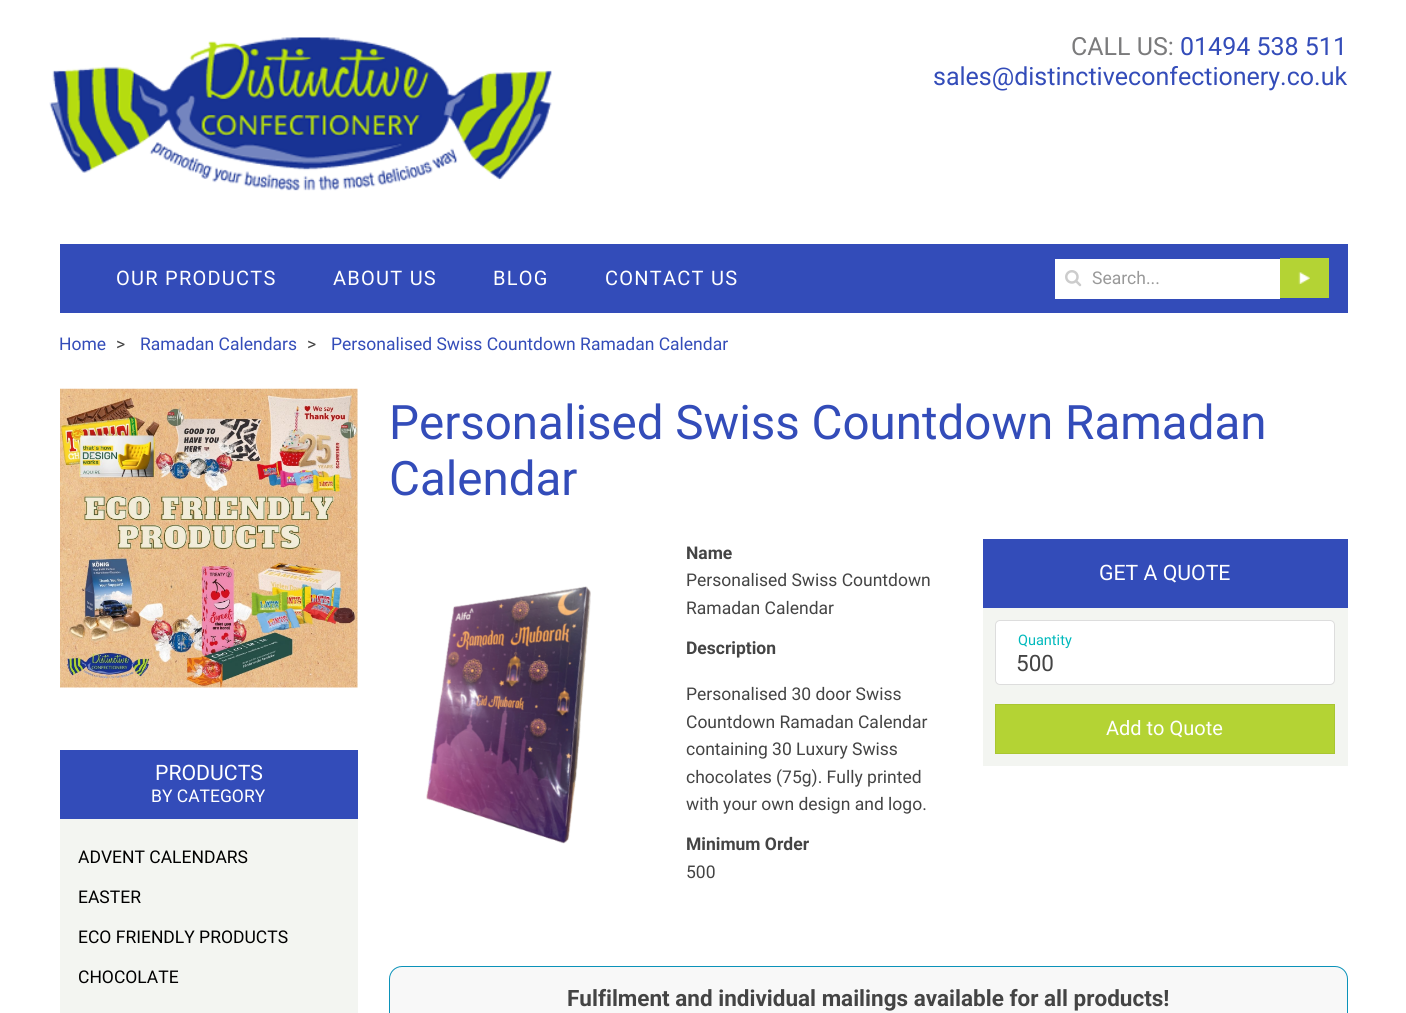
import math
import cairo

surface = cairo.ImageSurface(cairo.FORMAT_RGB24, 1406, 1013)
cr = cairo.Context(surface)
options = cairo.FontOptions()
options.set_hint_metrics(cairo.HINT_METRICS_OFF)
options.set_hint_style(cairo.HINT_STYLE_NONE)
cr.set_font_options(options)
cr.set_miter_limit(4)


def rgb(code):
    cr.set_source_rgb(*(v / 255 for v in bytes.fromhex(code[-6:])))


def tracked(x, y, s, letter, word):
    cr.move_to(x, y)
    for ch in s:
        cr.show_text(ch)
        cr.rel_move_to(letter + word * (ch == ' '), 0)


def rrect(x, y, w, h, r):
    cr.new_sub_path()
    for i, (u, v) in enumerate([(x + w - r, y + h - r), (x + r, y + h - r), (x + r, y + r), (x + w - r, y + r)]):
        cr.arc(u, v, r, i * math.pi / 2, (i + 1) * math.pi / 2)
    cr.close_path()


def image(path, x, y, w, h):
    cr.save()
    cr.set_source_surface(cairo.ImageSurface.create_from_png(path), x, y)
    cr.rectangle(x, y, w, h)
    cr.fill()
    cr.restore()


rgb("#ffffff")
cr.paint()
image("img/1.png", 49, 37, 503, 154)
rgb("#334cb9")
cr.rectangle(60, 244, 1288, 69)
cr.fill()
rgb("#ffffff")
cr.rectangle(1055, 259, 225, 40)
cr.fill()
image("img/2.png", 1065, 270, 17, 17)
rgb("#b4d334")
cr.rectangle(1280, 258, 49, 40)
cr.fill()
image("img/3.png", 1298, 271, 12, 14)
image("img/4.png", 60, 388, 298, 300)
rgb("#f3f5f1")
cr.rectangle(60, 819, 298, 194)
cr.fill()
rgb("#334cb9")
cr.rectangle(60, 750, 298, 69)
cr.fill()
image("img/5.png", 426, 586, 165, 258)
rgb("#f3f5f1")
cr.rectangle(983, 608, 365, 158)
cr.fill()
rgb("#334cb9")
cr.rectangle(983, 539, 365, 69)
cr.fill()
rgb("#ffffff")
rrect(995.5, 620.5, 339, 64, 4.5)
cr.fill_preserve()
rgb("#dddddd")
cr.set_line_width(1)
cr.stroke()
rgb("#b4d334")
cr.rectangle(995.5, 704.5, 339, 49)
cr.fill_preserve()
rgb("#a9c631")
cr.stroke()
rgb("#f8f8f8")
rrect(389.5, 966.5, 958, 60, 12.5)
cr.fill_preserve()
rgb("#0b92b9")
cr.stroke()
cr.select_font_face("Roboto")
cr.set_font_size(25)
rgb("#7b7b7c")
cr.move_to(1071, 55)
cr.show_text("CALL US:")
rgb("#334cb9")
cr.move_to(1180, 55)
cr.show_text("01494 538 511")
cr.move_to(933, 85)
cr.show_text("sales@distinctiveconfectionery.co.uk")
cr.set_font_size(20)
rgb("#ffffff")
for x, y, s in [
    (116, 285, "OUR PRODUCTS"),
    (333, 285, "ABOUT US"),
    (493, 285, "BLOG"),
    (605, 285, "CONTACT US"),
]:
    tracked(x, y, s, 1.25, 0)
cr.set_font_size(17.5)
rgb("#999999")
cr.move_to(1092, 284)
cr.show_text("Search...")
rgb("#334cb9")
cr.move_to(59, 350)
cr.show_text("Home")
rgb("#444444")
cr.move_to(116, 350)
cr.show_text(">")
rgb("#334cb9")
cr.move_to(140, 350)
cr.show_text("Ramadan Calendars")
rgb("#444444")
cr.move_to(307, 350)
cr.show_text(">")
rgb("#334cb9")
cr.move_to(331, 350)
cr.show_text("Personalised Swiss Countdown Ramadan Calendar")
cr.set_font_size(21.25)
rgb("#ffffff")
cr.move_to(155, 780)
cr.show_text("PRODUCTS")
cr.set_font_size(17.5)
cr.move_to(151, 802)
cr.show_text("BY CATEGORY")
rgb("#000000")
for x, y, s in [
    (78, 863, "ADVENT CALENDARS"),
    (78, 903, "EASTER"),
    (78, 943, "ECO FRIENDLY PRODUCTS"),
    (78, 983, "CHOCOLATE"),
]:
    cr.move_to(x, y)
    cr.show_text(s)
cr.set_font_size(47.5)
rgb("#334cb9")
cr.move_to(389, 439)
cr.show_text("Personalised Swiss Countdown Ramadan")
cr.move_to(389, 495)
cr.show_text("Calendar")
cr.select_font_face("Roboto", cairo.FONT_SLANT_NORMAL, cairo.FONT_WEIGHT_BOLD)
cr.set_font_size(17.5)
rgb("#444444")
cr.move_to(686, 559)
cr.show_text("Name")
cr.select_font_face("Roboto")
cr.move_to(686, 586)
cr.show_text("Personalised Swiss Countdown")
cr.move_to(686, 614)
cr.show_text("Ramadan Calendar")
cr.select_font_face("Roboto", cairo.FONT_SLANT_NORMAL, cairo.FONT_WEIGHT_BOLD)
cr.move_to(686, 654)
cr.show_text("Description")
cr.select_font_face("Roboto")
for x, y, s in [
    (686, 700, "Personalised 30 door Swiss"),
    (686, 728, "Countdown Ramadan Calendar"),
    (686, 755, "containing 30 Luxury Swiss"),
    (686, 783, "chocolates (75g). Fully printed"),
    (686, 810, "with your own design and logo."),
]:
    cr.move_to(x, y)
    cr.show_text(s)
cr.select_font_face("Roboto", cairo.FONT_SLANT_NORMAL, cairo.FONT_WEIGHT_BOLD)
cr.move_to(686, 850)
cr.show_text("Minimum Order")
cr.select_font_face("Roboto")
cr.move_to(686, 878)
cr.show_text("500")
cr.set_font_size(21.25)
rgb("#ffffff")
cr.move_to(1099, 580)
cr.show_text("GET A QUOTE")
cr.set_font_size(14.5)
rgb("#00b9bc")
cr.move_to(1018, 645)
cr.show_text("Quantity")
cr.set_font_size(22.5)
rgb("#444444")
cr.move_to(1016, 671)
cr.show_text("500")
cr.set_font_size(20)
rgb("#ffffff")
cr.move_to(1106, 735)
cr.show_text("Add to Quote")
cr.select_font_face("Roboto", cairo.FONT_SLANT_NORMAL, cairo.FONT_WEIGHT_BOLD)
cr.set_font_size(22.5)
rgb("#444444")
cr.move_to(567, 1006)
cr.show_text("Fulfilment and individual mailings available for all products!")
surface.write_to_png("page.png")
